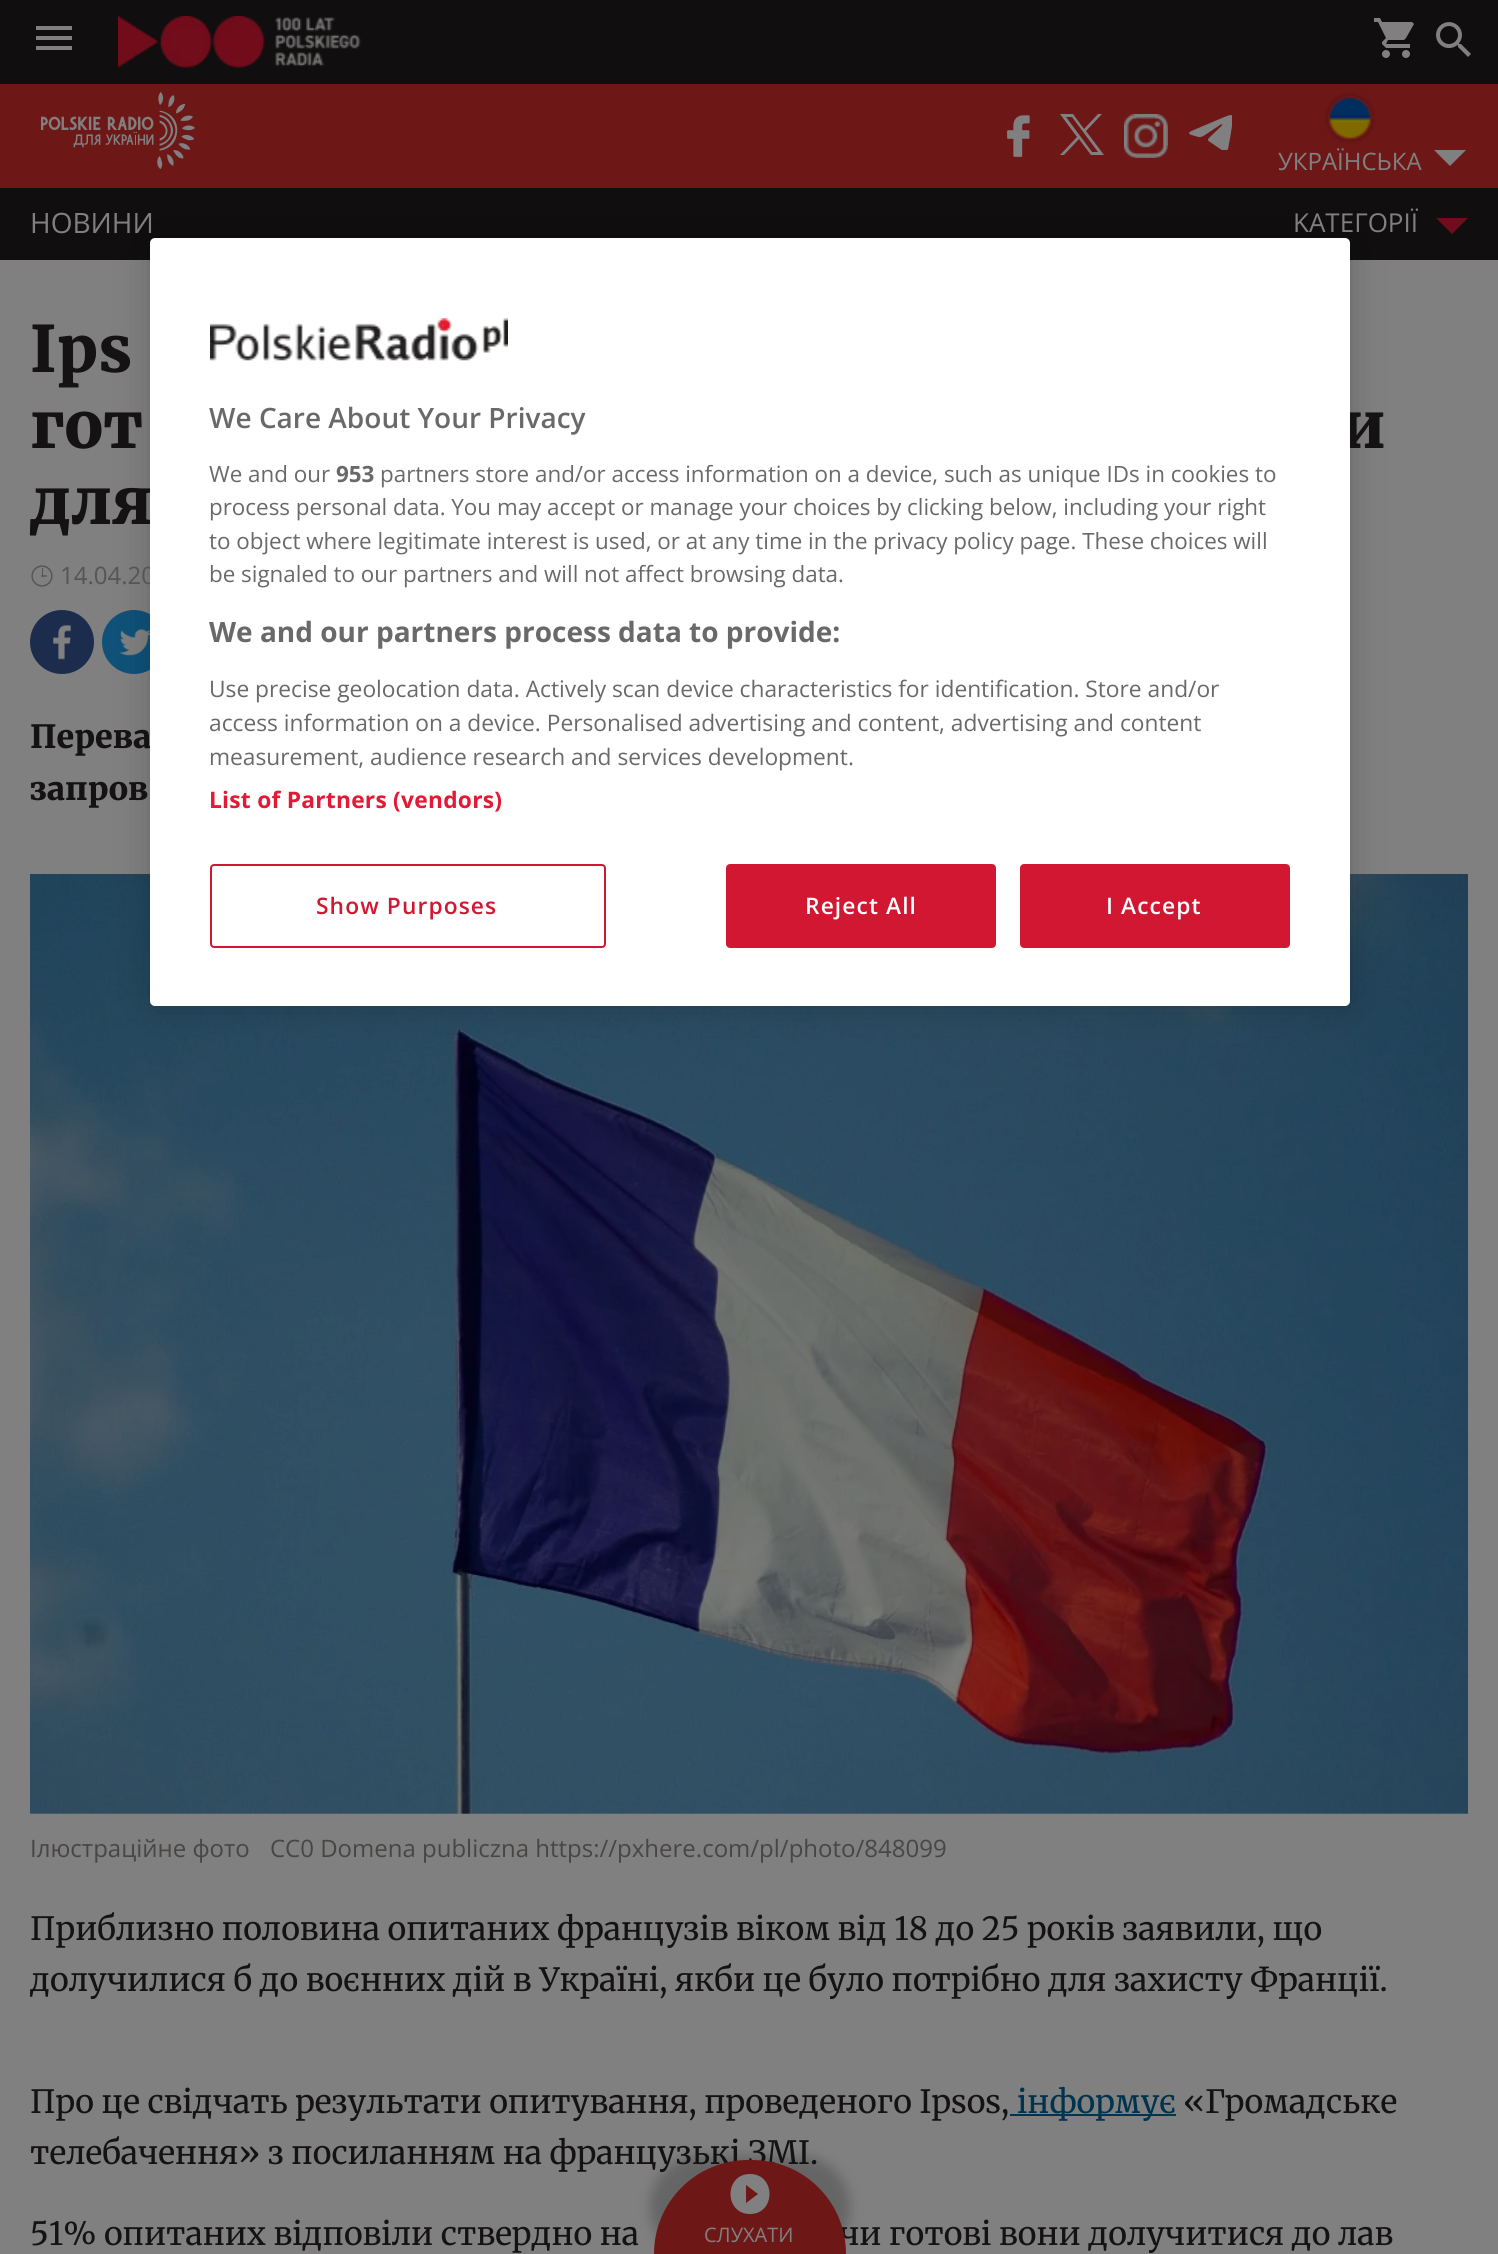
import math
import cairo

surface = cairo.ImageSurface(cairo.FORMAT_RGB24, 1498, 2254)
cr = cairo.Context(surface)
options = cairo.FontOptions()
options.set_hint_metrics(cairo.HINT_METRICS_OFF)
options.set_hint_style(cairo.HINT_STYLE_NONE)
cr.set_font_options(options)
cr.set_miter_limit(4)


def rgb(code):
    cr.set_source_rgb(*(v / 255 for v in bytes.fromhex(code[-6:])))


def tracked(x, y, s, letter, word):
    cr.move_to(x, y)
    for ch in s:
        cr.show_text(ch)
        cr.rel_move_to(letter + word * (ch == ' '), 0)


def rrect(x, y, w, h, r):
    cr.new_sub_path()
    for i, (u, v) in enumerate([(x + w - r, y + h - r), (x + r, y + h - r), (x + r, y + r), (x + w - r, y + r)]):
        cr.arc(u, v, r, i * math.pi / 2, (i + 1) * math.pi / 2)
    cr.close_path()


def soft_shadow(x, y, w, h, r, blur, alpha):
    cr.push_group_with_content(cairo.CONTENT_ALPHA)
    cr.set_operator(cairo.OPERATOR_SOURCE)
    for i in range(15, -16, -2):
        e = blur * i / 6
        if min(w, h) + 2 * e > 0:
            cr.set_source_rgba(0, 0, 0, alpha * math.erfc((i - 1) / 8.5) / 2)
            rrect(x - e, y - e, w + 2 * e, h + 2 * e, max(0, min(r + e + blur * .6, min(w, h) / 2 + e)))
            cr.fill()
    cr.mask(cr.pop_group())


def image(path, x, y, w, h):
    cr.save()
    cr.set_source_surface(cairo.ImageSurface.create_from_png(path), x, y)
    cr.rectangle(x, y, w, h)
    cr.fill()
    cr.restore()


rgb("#808080")
cr.paint()
rgb("#100e0e")
cr.rectangle(0, 188, 1498, 72)
cr.fill()
cr.rectangle(0, 0, 1498, 84)
cr.fill()
rgb("#808080")
cr.new_path()
cr.move_to(36, 50)
cr.line_to(72, 50)
cr.line_to(72, 46)
cr.line_to(36, 46)
cr.close_path()
cr.move_to(36, 40)
cr.line_to(72, 40)
cr.line_to(72, 36)
cr.line_to(36, 36)
cr.close_path()
cr.move_to(36, 26)
cr.line_to(36, 30)
cr.line_to(72, 30)
cr.line_to(72, 26)
cr.close_path()
cr.fill()
image("img/1.png", 118, 16, 244, 52)
image("img/2.png", 1374, 18, 40, 40)
image("img/3.png", 1436, 22, 35, 35)
rgb("#6e1717")
cr.rectangle(0, 84, 1498, 104)
cr.fill()
image("img/4.png", 41, 92, 154, 77)
image("img/5.png", 1007, 115, 23, 42)
rgb("#808080")
cr.new_path()
cr.move_to(1060, 114)
cr.line_to(1077, 137)
cr.line_to(1060, 155)
cr.line_to(1064, 155)
cr.line_to(1079, 139)
cr.line_to(1091, 155)
cr.line_to(1104, 155)
cr.line_to(1086, 131)
cr.line_to(1102, 114)
cr.line_to(1098, 114)
cr.line_to(1084, 129)
cr.line_to(1073, 114)
cr.close_path()
cr.move_to(1066, 117)
cr.line_to(1072, 117)
cr.line_to(1098, 152)
cr.line_to(1092, 152)
cr.close_path()
cr.fill()
image("img/6.png", 1124, 114, 44, 44)
image("img/7.png", 1189, 115, 43, 35)
cr.save()
cr.set_fill_rule(cairo.FILL_RULE_EVEN_ODD)
cr.new_path()
cr.move_to(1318, 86)
cr.line_to(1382, 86)
cr.line_to(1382, 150)
cr.line_to(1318, 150)
cr.close_path()
cr.move_to(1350, 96)
cr.curve_to(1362, 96, 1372, 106, 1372, 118)
cr.curve_to(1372, 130, 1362, 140, 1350, 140)
cr.curve_to(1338, 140, 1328, 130, 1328, 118)
cr.curve_to(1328, 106, 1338, 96, 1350, 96)
cr.close_path()
cr.clip()
rgb("#000000")
soft_shadow(1328, 96, 44, 44, 22, 3, 0.3)
cr.restore()
image("img/8.png", 1329, 97, 42, 42)
cr.new_path()
cr.move_to(1434, 150)
cr.line_to(1466, 150)
cr.line_to(1450, 166)
cr.close_path()
cr.fill()
rgb("#710c1c")
cr.new_path()
cr.move_to(1436, 218)
cr.line_to(1468, 218)
cr.line_to(1452, 234)
cr.close_path()
cr.fill()
rgb("#000000")
soft_shadow(650, 2156, 200, 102, 98, 6, 0.21)
image("img/9.png", 31, 565, 22, 22)
rgb("#1b2c4d")
cr.arc(62, 642, 32, 0, 2 * math.pi)
cr.fill()
image("img/10.png", 53, 625, 18, 35)
rgb("#0f5179")
cr.arc(134, 642, 32, 0, 2 * math.pi)
cr.fill()
image("img/11.png", 119, 628, 31, 28)
image("img/12.png", 30, 874, 1438, 940)
rgb("#00334d")
cr.rectangle(1010, 2114, 166, 2)
cr.fill()
rgb("#000000")
soft_shadow(150, 238, 1200, 768, 5, 18, 0.2)
cr.select_font_face("Open Sans")
cr.set_font_size(24)
rgb("#808080")
cr.move_to(1278, 170)
cr.show_text("УКРАЇНСЬКА")
cr.set_font_size(28)
cr.move_to(30, 233)
cr.show_text("НOВИНИ")
cr.set_font_size(26)
cr.move_to(1293, 232)
cr.show_text("KАТЕГОРІЇ")
cr.select_font_face("Merriweather Black")
cr.set_font_size(64)
rgb("#141212")
for x, y, s in [
    (30, 372, "Ips"),
    (30, 448, "гот"),
    (1340, 448, "и"),
    (30, 524, "для"),
]:
    cr.move_to(x, y)
    cr.show_text(s)
cr.select_font_face("Open Sans")
cr.set_font_size(24)
rgb("#555555")
cr.move_to(60, 584)
cr.show_text("14.04.20")
cr.select_font_face("Merriweather Black")
cr.set_font_size(32)
rgb("#141212")
cr.move_to(30, 748)
cr.show_text("Перева")
cr.move_to(30, 800)
cr.show_text("запров")
cr.select_font_face("Open Sans")
cr.set_font_size(24)
rgb("#484645")
cr.move_to(30, 1857)
cr.show_text("Ілюстраційне фото")
cr.move_to(270, 1857)
cr.show_text("CC0 Domena publiczna https://pxhere.com/pl/photo/848099")
cr.select_font_face("Merriweather")
cr.set_font_size(32)
rgb("#141212")
for x, y, s in [
    (30, 1940, "Приблизно половина опитаних французів віком від 18 до 25 років заявили, що"),
    (30, 1991, "долучилися б до воєнних дій в Україні, якби це було потрібно для захисту Франції."),
    (30, 2113, "Про це свідчать результати опитування, проведеного Ipsos,"),
]:
    cr.move_to(x, y)
    cr.show_text(s)
rgb("#00334d")
cr.move_to(1017, 2113)
cr.show_text("інформує")
rgb("#141212")
for x, y, s in [
    (1183, 2113, "«Громадське"),
    (30, 2164, "телебачення» з посиланням на французькі ЗМІ."),
    (30, 2245, "51% опитаних відповіли ствердно на"),
    (839, 2245, "чи готові вони долучитися до лав"),
]:
    cr.move_to(x, y)
    cr.show_text(s)
rgb("#6e1717")
cr.new_path()
cr.move_to(748, 2160)
cr.line_to(752, 2160)
cr.curve_to(804, 2160, 846, 2202, 846, 2254)
cr.line_to(654, 2254)
cr.curve_to(654, 2202, 696, 2160, 748, 2160)
cr.close_path()
cr.fill()
cr.select_font_face("Open Sans")
cr.set_font_size(20)
rgb("#808080")
cr.move_to(704, 2242)
cr.show_text("СЛУХАТИ")
cr.new_path()
cr.move_to(750, 2174)
cr.curve_to(724, 2174, 724, 2214, 750, 2214)
cr.curve_to(776, 2214, 776, 2174, 750, 2174)
cr.close_path()
cr.move_to(746, 2203)
cr.line_to(746, 2185)
cr.line_to(758, 2194)
cr.close_path()
cr.fill()
rgb("#ffffff")
rrect(150, 238, 1200, 768, 5)
cr.fill()
image("img/13.png", 210, 318, 298, 43)
cr.select_font_face("Open Sans SemiBold")
cr.set_font_size(28)
rgb("#696969")
cr.move_to(209, 428)
cr.show_text("We Care About Your Privacy")
cr.select_font_face("Open Sans")
cr.set_font_size(22.4)
cr.move_to(209, 482)
cr.show_text("We and our")
cr.select_font_face("Open Sans", cairo.FONT_SLANT_NORMAL, cairo.FONT_WEIGHT_BOLD)
cr.move_to(336, 482)
cr.show_text("953")
cr.select_font_face("Open Sans")
for x, y, s in [
    (380, 482, "partners store and/or access information on a device, such as unique IDs in cookies to"),
    (209, 515, "process personal data. You may accept or manage your choices by clicking below, including your right"),
    (209, 549, "to object where legitimate interest is used, or at any time in the privacy policy page. These choices will"),
    (209, 582, "be signaled to our partners and will not affect browsing data."),
]:
    cr.move_to(x, y)
    cr.show_text(s)
cr.select_font_face("Open Sans", cairo.FONT_SLANT_NORMAL, cairo.FONT_WEIGHT_BOLD)
cr.set_font_size(28)
cr.move_to(209, 642)
cr.show_text("We and our partners process data to provide:")
cr.select_font_face("Open Sans")
cr.set_font_size(22.75)
for x, y, s in [
    (209, 697, "Use precise geolocation data. Actively scan device characteristics for identification. Store and/or"),
    (209, 731, "access information on a device. Personalised advertising and content, advertising and content"),
    (209, 765, "measurement, audience research and services development."),
]:
    cr.move_to(x, y)
    cr.show_text(s)
cr.select_font_face("Open Sans", cairo.FONT_SLANT_NORMAL, cairo.FONT_WEIGHT_BOLD)
rgb("#e31936")
tracked(209, 808, "List of Partners (vendors)", 0.25, 0)
rrect(211, 865, 394, 82, 3)
rgb("#d21733")
cr.stroke()
cr.select_font_face("Open Sans SemiBold")
tracked(316, 914, "Show Purposes", 1.1, 0)
rrect(727, 865, 268, 82, 3)
cr.fill_preserve()
cr.stroke()
rgb("#ffffff")
tracked(805, 914, "Reject All", 1.1, 0)
rgb("#d21733")
rrect(1021, 865, 268, 82, 3)
cr.fill_preserve()
cr.stroke()
rgb("#ffffff")
tracked(1106, 914, "I Accept", 1.1, 0)
surface.write_to_png("page.png")
